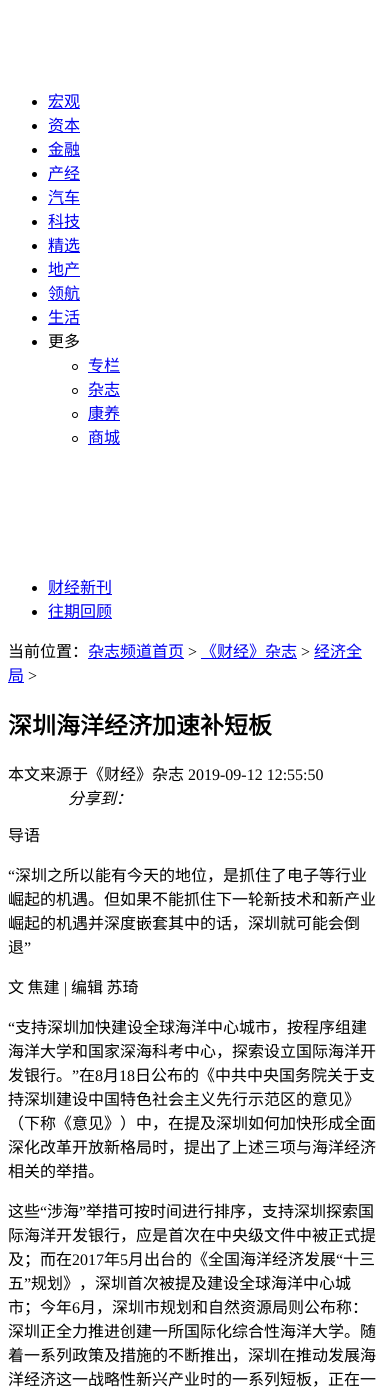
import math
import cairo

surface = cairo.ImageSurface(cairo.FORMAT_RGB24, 387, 1395)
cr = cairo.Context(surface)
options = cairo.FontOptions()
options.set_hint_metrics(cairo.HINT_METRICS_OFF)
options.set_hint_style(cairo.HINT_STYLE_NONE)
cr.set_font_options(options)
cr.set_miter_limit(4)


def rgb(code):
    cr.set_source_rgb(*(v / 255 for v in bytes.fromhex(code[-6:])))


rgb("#ffffff")
cr.paint()
rgb("#000000")
cr.arc(34.5, 102.5, 2.5, 0, 2 * math.pi)
cr.fill()
rgb("#0000ee")
cr.rectangle(48, 108, 32, 1)
cr.fill()
rgb("#000000")
cr.arc(34.5, 126.5, 2.5, 0, 2 * math.pi)
cr.fill()
rgb("#0000ee")
cr.rectangle(48, 132, 32, 1)
cr.fill()
rgb("#000000")
cr.arc(34.5, 150.5, 2.5, 0, 2 * math.pi)
cr.fill()
rgb("#0000ee")
cr.rectangle(48, 156, 32, 1)
cr.fill()
rgb("#000000")
cr.arc(34.5, 174.5, 2.5, 0, 2 * math.pi)
cr.fill()
rgb("#0000ee")
cr.rectangle(48, 180, 32, 1)
cr.fill()
rgb("#000000")
cr.arc(34.5, 198.5, 2.5, 0, 2 * math.pi)
cr.fill()
rgb("#0000ee")
cr.rectangle(48, 204, 32, 1)
cr.fill()
rgb("#000000")
cr.arc(34.5, 222.5, 2.5, 0, 2 * math.pi)
cr.fill()
rgb("#0000ee")
cr.rectangle(48, 228, 32, 1)
cr.fill()
rgb("#000000")
cr.arc(34.5, 246.5, 2.5, 0, 2 * math.pi)
cr.fill()
rgb("#0000ee")
cr.rectangle(48, 252, 32, 1)
cr.fill()
rgb("#000000")
cr.arc(34.5, 270.5, 2.5, 0, 2 * math.pi)
cr.fill()
rgb("#0000ee")
cr.rectangle(48, 276, 32, 1)
cr.fill()
rgb("#000000")
cr.arc(34.5, 294.5, 2.5, 0, 2 * math.pi)
cr.fill()
rgb("#0000ee")
cr.rectangle(48, 300, 32, 1)
cr.fill()
rgb("#000000")
cr.arc(34.5, 318.5, 2.5, 0, 2 * math.pi)
cr.fill()
rgb("#0000ee")
cr.rectangle(48, 324, 32, 1)
cr.fill()
rgb("#000000")
cr.arc(34.5, 342.5, 2.5, 0, 2 * math.pi)
cr.fill()
cr.arc(75, 367, 2.5, 0, 2 * math.pi)
cr.set_line_width(1)
cr.stroke()
rgb("#0000ee")
cr.rectangle(88, 372, 32, 1)
cr.fill()
cr.arc(75, 391, 2.5, 0, 2 * math.pi)
rgb("#000000")
cr.stroke()
rgb("#0000ee")
cr.rectangle(88, 396, 32, 1)
cr.fill()
cr.arc(75, 415, 2.5, 0, 2 * math.pi)
rgb("#000000")
cr.stroke()
rgb("#0000ee")
cr.rectangle(88, 420, 32, 1)
cr.fill()
cr.arc(75, 439, 2.5, 0, 2 * math.pi)
rgb("#000000")
cr.stroke()
rgb("#0000ee")
cr.rectangle(88, 444, 32, 1)
cr.fill()
rgb("#000000")
cr.arc(34.5, 588.5, 2.5, 0, 2 * math.pi)
cr.fill()
rgb("#0000ee")
cr.rectangle(48, 594, 64, 1)
cr.fill()
rgb("#000000")
cr.arc(34.5, 612.5, 2.5, 0, 2 * math.pi)
cr.fill()
for x, y, w, h, color in [
    (48, 618, 64, 1, "#0000ee"),
    (88, 658, 96, 1, "#0000ee"),
    (201, 658, 96, 1, "#0000ee"),
    (314, 658, 48, 1, "#0000ee"),
    (8, 682, 16, 1, "#0000ee"),
]:
    rgb(color)
    cr.rectangle(x, y, w, h)
    cr.fill()
cr.select_font_face("Noto Sans CJK SC")
cr.set_font_size(16)
for x, y, s in [
    (48, 107, "宏观"),
    (48, 131, "资本"),
    (48, 155, "金融"),
    (48, 179, "产经"),
    (48, 203, "汽车"),
    (48, 227, "科技"),
    (48, 251, "精选"),
    (48, 275, "地产"),
    (48, 299, "领航"),
    (48, 323, "生活"),
]:
    cr.move_to(x, y)
    cr.show_text(s)
rgb("#000000")
cr.move_to(48, 347)
cr.show_text("更多")
rgb("#0000ee")
for x, y, s in [
    (88, 371, "专栏"),
    (88, 395, "杂志"),
    (88, 419, "康养"),
    (88, 443, "商城"),
    (48, 593, "财经新刊"),
    (48, 617, "往期回顾"),
]:
    cr.move_to(x, y)
    cr.show_text(s)
rgb("#000000")
cr.move_to(8, 657)
cr.show_text("当前位置：")
rgb("#0000ee")
cr.move_to(88, 657)
cr.show_text("杂志频道首页")
cr.select_font_face("Liberation Serif")
rgb("#000000")
cr.move_to(188, 657)
cr.show_text(">")
cr.select_font_face("Noto Sans CJK SC")
rgb("#0000ee")
cr.move_to(201, 657)
cr.show_text("《财经》杂志")
cr.select_font_face("Liberation Serif")
rgb("#000000")
cr.move_to(301, 657)
cr.show_text(">")
cr.select_font_face("Noto Sans CJK SC")
rgb("#0000ee")
cr.move_to(314, 657)
cr.show_text("经济全")
cr.move_to(8, 681)
cr.show_text("局")
cr.select_font_face("Liberation Serif")
rgb("#000000")
cr.move_to(28, 681)
cr.show_text(">")
cr.select_font_face("Noto Sans CJK SC", cairo.FONT_SLANT_NORMAL, cairo.FONT_WEIGHT_BOLD)
cr.set_font_size(24)
cr.move_to(8, 734)
cr.show_text("深圳海洋经济加速补短板")
cr.select_font_face("Noto Sans CJK SC")
cr.set_font_size(16)
cr.move_to(8, 780)
cr.show_text("本文来源于《财经》杂志")
cr.select_font_face("Liberation Serif")
cr.move_to(188, 780)
cr.show_text("2019-09-12 12:55:50")
cr.select_font_face("Noto Sans CJK SC", cairo.FONT_SLANT_ITALIC)
cr.move_to(68, 804)
cr.show_text("分享到：")
cr.select_font_face("Noto Sans CJK SC")
cr.move_to(8, 841)
cr.show_text("导语")
cr.select_font_face("Liberation Serif")
cr.move_to(8, 881)
cr.show_text("“")
cr.select_font_face("Noto Sans CJK SC")
for x, y, s in [
    (15, 881, "深圳之所以能有今天的地位，是抓住了电子等行业"),
    (8, 905, "崛起的机遇。但如果不能抓住下一轮新技术和新产业"),
    (8, 929, "崛起的机遇并深度嵌套其中的话，深圳就可能会倒"),
    (8, 953, "退"),
]:
    cr.move_to(x, y)
    cr.show_text(s)
cr.select_font_face("Liberation Serif")
cr.move_to(24, 953)
cr.show_text("”")
cr.select_font_face("Noto Sans CJK SC")
cr.move_to(8, 993)
cr.show_text("文 焦建")
cr.select_font_face("Liberation Serif")
cr.move_to(64, 993)
cr.show_text("|")
cr.select_font_face("Noto Sans CJK SC")
cr.move_to(71, 993)
cr.show_text("编辑 苏琦")
cr.select_font_face("Liberation Serif")
cr.move_to(8, 1033)
cr.show_text("“")
cr.select_font_face("Noto Sans CJK SC")
for x, y, s in [
    (15, 1033, "支持深圳加快建设全球海洋中心城市，按程序组建"),
    (8, 1057, "海洋大学和国家深海科考中心，探索设立国际海洋开"),
    (8, 1081, "发银行。"),
]:
    cr.move_to(x, y)
    cr.show_text(s)
cr.select_font_face("Liberation Serif")
cr.move_to(72, 1081)
cr.show_text("”")
cr.select_font_face("Noto Sans CJK SC")
cr.move_to(79, 1081)
cr.show_text("在")
cr.select_font_face("Liberation Serif")
cr.move_to(95, 1081)
cr.show_text("8")
cr.select_font_face("Noto Sans CJK SC")
cr.move_to(103, 1081)
cr.show_text("月")
cr.select_font_face("Liberation Serif")
cr.move_to(119, 1081)
cr.show_text("18")
cr.select_font_face("Noto Sans CJK SC")
for x, y, s in [
    (135, 1081, "日公布的《中共中央国务院关于支"),
    (8, 1105, "持深圳建设中国特色社会主义先行示范区的意见》"),
    (8, 1129, "（下称《意见》）中，在提及深圳如何加快形成全面"),
    (8, 1153, "深化改革开放新格局时，提出了上述三项与海洋经济"),
    (8, 1177, "相关的举措。"),
    (8, 1217, "这些"),
]:
    cr.move_to(x, y)
    cr.show_text(s)
cr.select_font_face("Liberation Serif")
cr.move_to(40, 1217)
cr.show_text("“")
cr.select_font_face("Noto Sans CJK SC")
cr.move_to(47, 1217)
cr.show_text("涉海")
cr.select_font_face("Liberation Serif")
cr.move_to(79, 1217)
cr.show_text("”")
cr.select_font_face("Noto Sans CJK SC")
for x, y, s in [
    (86, 1217, "举措可按时间进行排序，支持深圳探索国"),
    (8, 1241, "际海洋开发银行，应是首次在中央级文件中被正式提"),
    (8, 1265, "及；而在"),
]:
    cr.move_to(x, y)
    cr.show_text(s)
cr.select_font_face("Liberation Serif")
cr.move_to(72, 1265)
cr.show_text("2017")
cr.select_font_face("Noto Sans CJK SC")
cr.move_to(104, 1265)
cr.show_text("年")
cr.select_font_face("Liberation Serif")
cr.move_to(120, 1265)
cr.show_text("5")
cr.select_font_face("Noto Sans CJK SC")
cr.move_to(128, 1265)
cr.show_text("月出台的《全国海洋经济发展")
cr.select_font_face("Liberation Serif")
cr.move_to(336, 1265)
cr.show_text("“")
cr.select_font_face("Noto Sans CJK SC")
cr.move_to(343, 1265)
cr.show_text("十三")
cr.move_to(8, 1289)
cr.show_text("五")
cr.select_font_face("Liberation Serif")
cr.move_to(24, 1289)
cr.show_text("”")
cr.select_font_face("Noto Sans CJK SC")
cr.move_to(31, 1289)
cr.show_text("规划》，深圳首次被提及建设全球海洋中心城")
cr.move_to(8, 1313)
cr.show_text("市；今年")
cr.select_font_face("Liberation Serif")
cr.move_to(72, 1313)
cr.show_text("6")
cr.select_font_face("Noto Sans CJK SC")
for x, y, s in [
    (80, 1313, "月，深圳市规划和自然资源局则公布称："),
    (8, 1337, "深圳正全力推进创建一所国际化综合性海洋大学。随"),
    (8, 1361, "着一系列政策及措施的不断推出，深圳在推动发展海"),
    (8, 1385, "洋经济这一战略性新兴产业时的一系列短板，正在一"),
]:
    cr.move_to(x, y)
    cr.show_text(s)
surface.write_to_png("page.png")
